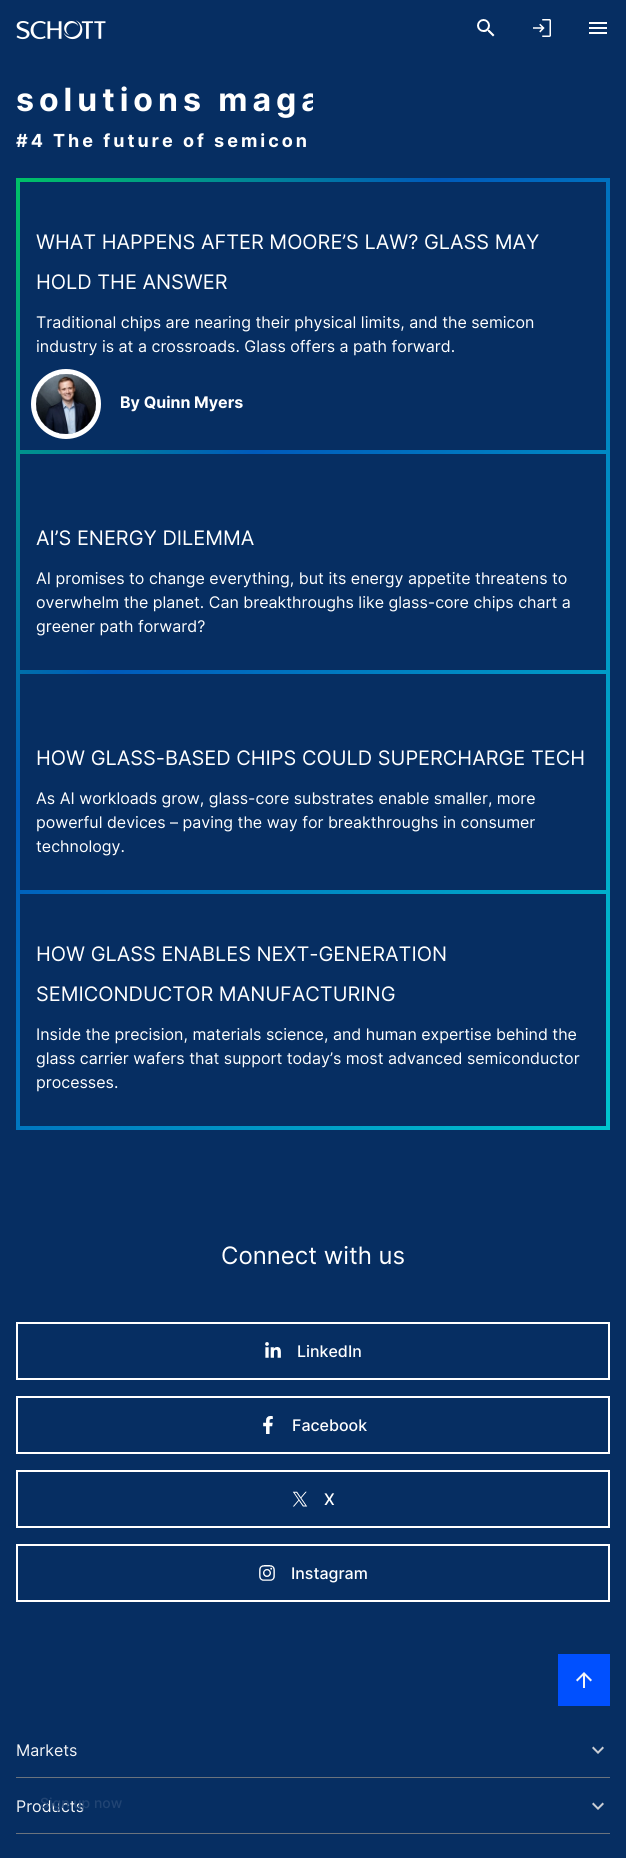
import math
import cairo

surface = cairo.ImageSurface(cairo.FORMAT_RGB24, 626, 1858)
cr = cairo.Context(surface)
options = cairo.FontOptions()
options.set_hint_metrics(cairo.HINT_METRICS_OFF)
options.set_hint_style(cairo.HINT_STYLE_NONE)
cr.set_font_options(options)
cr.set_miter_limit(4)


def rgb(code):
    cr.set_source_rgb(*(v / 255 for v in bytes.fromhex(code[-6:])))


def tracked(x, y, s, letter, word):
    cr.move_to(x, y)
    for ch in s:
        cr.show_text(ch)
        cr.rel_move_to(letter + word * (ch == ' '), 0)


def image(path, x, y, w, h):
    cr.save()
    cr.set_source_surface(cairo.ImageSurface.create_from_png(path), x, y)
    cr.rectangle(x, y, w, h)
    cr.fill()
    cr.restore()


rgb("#062e62")
cr.paint()
image("img/1.png", 16, 20, 90, 20)
image("img/2.png", 477, 19, 18, 18)
image("img/3.png", 533, 19, 18, 18)
image("img/4.png", 589, 22, 18, 12)
gradient = cairo.LinearGradient(-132, 355, 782, 969)
gradient.add_color_stop_rgba(0, 0, 0.784, 0.38, 1)
gradient.add_color_stop_rgba(0.34, 0, 0.353, 0.733, 1)
gradient.add_color_stop_rgba(1, 0, 0.808, 0.816, 1)
cr.set_source(gradient)
cr.rectangle(16, 178, 594, 952)
cr.fill()
rgb("#062e62")
cr.rectangle(20, 182, 586, 268)
cr.fill()
cr.arc(66, 404, 32.5, 0, 2 * math.pi)
rgb("#ffffff")
cr.set_line_width(5)
cr.stroke()
cr.arc(66, 404, 30, 0, 2 * math.pi)
cr.fill()
image("img/5.png", 36, 374, 60, 60)
for x, y, w, h, color in [
    (20, 454, 586, 216, "#062e62"),
    (20, 674, 586, 216, "#062e62"),
    (20, 894, 586, 232, "#062e62"),
]:
    rgb(color)
    cr.rectangle(x, y, w, h)
    cr.fill()
cr.rectangle(17, 1323, 592, 56)
rgb("#ffffff")
cr.set_line_width(2)
cr.stroke()
image("img/6.png", 265, 1342, 16, 16)
cr.rectangle(17, 1397, 592, 56)
cr.stroke()
image("img/7.png", 263, 1416, 10, 18)
cr.rectangle(17, 1471, 592, 56)
cr.stroke()
image("img/8.png", 292, 1491, 16, 16)
cr.rectangle(17, 1545, 592, 56)
cr.stroke()
image("img/9.png", 259, 1565, 16, 16)
rgb("#0050ff")
cr.rectangle(558, 1654, 52, 52)
cr.fill()
image("img/10.png", 576, 1672, 16, 16)
image("img/11.png", 592, 1746, 12, 8)
rgb("#6a737d")
cr.rectangle(16, 1777, 594, 1)
cr.fill()
image("img/11.png", 592, 1802, 12, 8)
cr.rectangle(16, 1833, 594, 1)
cr.fill()
cr.select_font_face("Inter", cairo.FONT_SLANT_NORMAL, cairo.FONT_WEIGHT_BOLD)
cr.set_font_size(32)
gradient = cairo.LinearGradient(16, 100, 610, 100)
gradient.add_color_stop_rgba(0.5, 1, 1, 1, 1)
gradient.add_color_stop_rgba(0.5, 0.024, 0.18, 0.384, 1)
cr.set_source(gradient)
tracked(16, 111, "solutions maga", 5, 0)
cr.set_font_size(18)
gradient = cairo.LinearGradient(16, 141, 610, 141)
gradient.add_color_stop_rgba(0.5, 1, 1, 1, 1)
gradient.add_color_stop_rgba(0.5, 0.024, 0.18, 0.384, 1)
cr.set_source(gradient)
tracked(16, 147, "#4 The future of semicon", 3, 0)
cr.select_font_face("Inter")
cr.set_font_size(20)
rgb("#ffffff")
cr.move_to(36, 249)
cr.show_text("WHAT HAPPENS AFTER MOORE’S LAW? GLASS MAY")
cr.move_to(36, 289)
cr.show_text("HOLD THE ANSWER")
cr.set_font_size(16)
cr.move_to(36, 328)
cr.show_text("Traditional chips are nearing their physical limits, and the semicon")
cr.move_to(36, 352)
cr.show_text("industry is at a crossroads. Glass offers a path forward.")
cr.select_font_face("Inter", cairo.FONT_SLANT_NORMAL, cairo.FONT_WEIGHT_BOLD)
cr.move_to(120, 408)
cr.show_text("By Quinn Myers")
cr.select_font_face("Inter")
cr.set_font_size(20)
cr.move_to(36, 545)
cr.show_text("AI’S ENERGY DILEMMA")
cr.set_font_size(16)
for x, y, s in [
    (36, 584, "AI promises to change everything, but its energy appetite threatens to"),
    (36, 608, "overwhelm the planet. Can breakthroughs like glass-core chips chart a"),
    (36, 632, "greener path forward?"),
]:
    cr.move_to(x, y)
    cr.show_text(s)
cr.set_font_size(20)
cr.move_to(36, 765)
cr.show_text("HOW GLASS-BASED CHIPS COULD SUPERCHARGE TECH")
cr.set_font_size(16)
for x, y, s in [
    (36, 804, "As AI workloads grow, glass-core substrates enable smaller, more"),
    (36, 828, "powerful devices – paving the way for breakthroughs in consumer"),
    (36, 852, "technology."),
]:
    cr.move_to(x, y)
    cr.show_text(s)
cr.set_font_size(20)
cr.move_to(36, 961)
cr.show_text("HOW GLASS ENABLES NEXT-GENERATION")
cr.move_to(36, 1001)
cr.show_text("SEMICONDUCTOR MANUFACTURING")
cr.set_font_size(16)
for x, y, s in [
    (36, 1040, "Inside the precision, materials science, and human expertise behind the"),
    (36, 1064, "glass carrier wafers that support today’s most advanced semiconductor"),
    (36, 1088, "processes."),
]:
    cr.move_to(x, y)
    cr.show_text(s)
cr.set_font_size(24)
cr.move_to(221, 1264)
cr.show_text("Connect with us")
cr.select_font_face("Inter Medium")
cr.set_font_size(16)
for x, y, s in [
    (297, 1357, "LinkedIn"),
    (292, 1431, "Facebook"),
    (324, 1505, "X"),
    (291, 1579, "Instagram"),
]:
    cr.move_to(x, y)
    cr.show_text(s)
cr.select_font_face("Inter")
rgb("#f4f5f7")
cr.move_to(16, 1756)
cr.show_text("Markets")
cr.move_to(16, 1812)
cr.show_text("Products")
cr.select_font_face("Inter Medium")
cr.set_font_size(14)
rgb("#214473")
cr.move_to(40, 1808)
cr.show_text("Sign up now")
surface.write_to_png("page.png")
